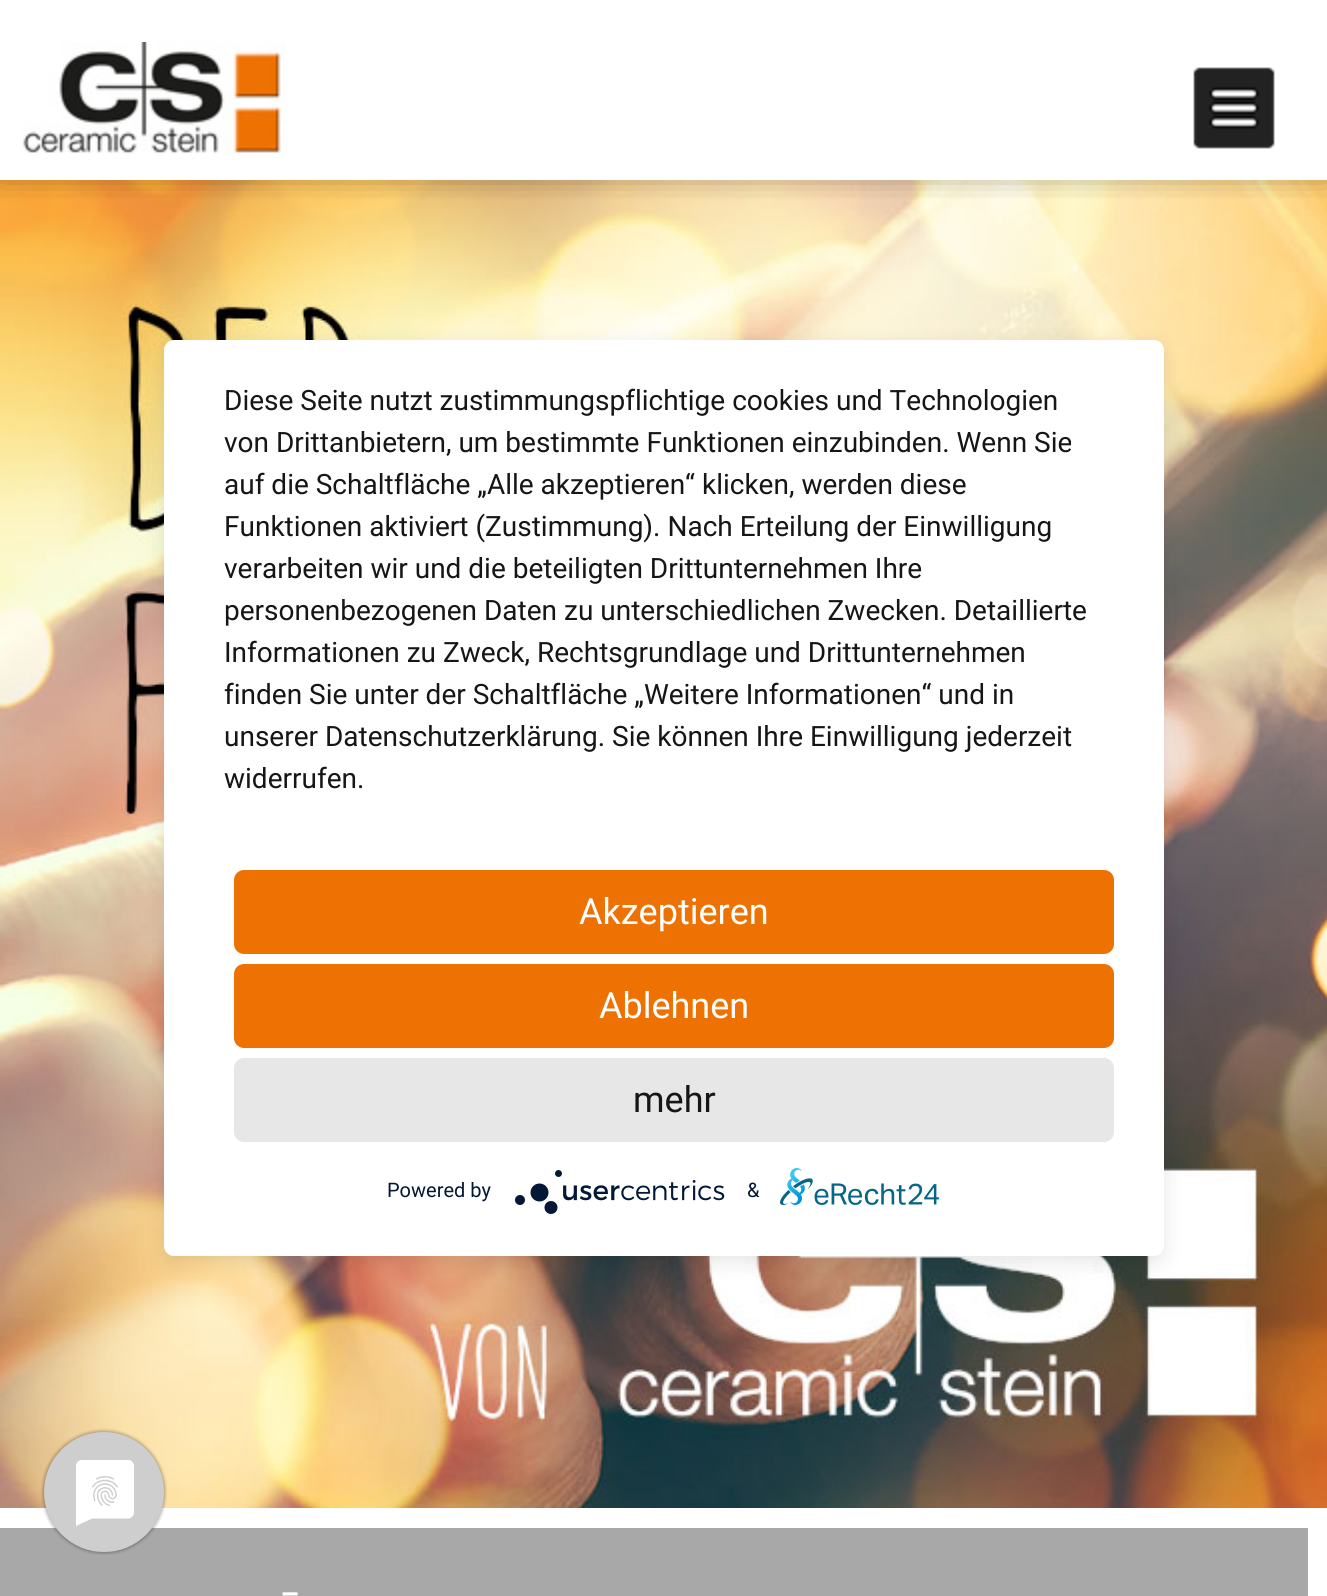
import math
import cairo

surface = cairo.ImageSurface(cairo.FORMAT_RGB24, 1327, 1596)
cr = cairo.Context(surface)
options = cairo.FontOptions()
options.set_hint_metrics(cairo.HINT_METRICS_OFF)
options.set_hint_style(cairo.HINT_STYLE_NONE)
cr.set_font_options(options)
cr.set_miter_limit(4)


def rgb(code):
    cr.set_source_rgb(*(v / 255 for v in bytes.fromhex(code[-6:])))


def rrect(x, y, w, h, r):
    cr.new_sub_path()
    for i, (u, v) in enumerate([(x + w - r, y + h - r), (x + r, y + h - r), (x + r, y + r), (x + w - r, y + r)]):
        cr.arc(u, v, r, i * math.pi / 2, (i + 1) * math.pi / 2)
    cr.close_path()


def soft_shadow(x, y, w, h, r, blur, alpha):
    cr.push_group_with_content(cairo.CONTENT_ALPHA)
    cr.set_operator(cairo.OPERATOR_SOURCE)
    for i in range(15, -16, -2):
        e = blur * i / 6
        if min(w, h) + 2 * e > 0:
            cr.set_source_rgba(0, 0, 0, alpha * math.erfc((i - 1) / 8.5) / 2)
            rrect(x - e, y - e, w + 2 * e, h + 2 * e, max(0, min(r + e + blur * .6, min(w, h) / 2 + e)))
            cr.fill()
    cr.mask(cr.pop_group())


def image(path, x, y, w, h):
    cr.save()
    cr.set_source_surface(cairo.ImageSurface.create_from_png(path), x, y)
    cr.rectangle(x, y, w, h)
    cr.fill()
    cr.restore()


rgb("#ffffff")
cr.paint()
image("img/6.png", 0, 180, 1327, 1328)
rgb("#000000")
soft_shadow(164, 346, 1000, 916, 10, 10, 0.1)
rgb("#ffffff")
rrect(164, 340, 1000, 916, 10)
cr.fill()
rgb("#ed7203")
rrect(234, 870, 880, 84, 10)
cr.fill()
rrect(234, 964, 880, 84, 10)
cr.fill()
rgb("#e7e7e7")
rrect(234, 1058, 880, 84, 10)
cr.fill()
image("img/1.png", 515, 1170, 210, 44)
image("img/2.png", 780, 1168, 160, 37)
rgb("#a8a8a8")
cr.rectangle(0, 1528, 1308, 68)
cr.fill()
image("img/3.png", 41, 1428, 126, 127)
cr.save()
cr.rectangle(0, 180, 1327, 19)
cr.clip()
rgb("#000000")
soft_shadow(0, -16, 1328, 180, 0, 18, 0.75)
cr.restore()
image("img/4.png", 23, 42, 263, 112)
image("img/5.png", 1193, 67, 82, 82)
cr.select_font_face("Roboto")
cr.set_font_size(28)
rgb("#161616")
for x, y, s in [
    (224, 410, "Diese Seite nutzt zustimmungspflichtige cookies und Technologien"),
    (224, 452, "von Drittanbietern, um bestimmte Funktionen einzubinden. Wenn Sie"),
    (224, 494, "auf die Schaltfläche „Alle akzeptieren“ klicken, werden diese"),
    (224, 536, "Funktionen aktiviert (Zustimmung). Nach Erteilung der Einwilligung"),
    (224, 578, "verarbeiten wir und die beteiligten Drittunternehmen Ihre"),
    (224, 620, "personenbezogenen Daten zu unterschiedlichen Zwecken. Detaillierte"),
    (224, 662, "Informationen zu Zweck, Rechtsgrundlage und Drittunternehmen"),
    (224, 704, "finden Sie unter der Schaltfläche „Weitere Informationen“ und in"),
    (224, 746, "unserer Datenschutzerklärung. Sie können Ihre Einwilligung jederzeit"),
    (224, 788, "widerrufen."),
]:
    cr.move_to(x, y)
    cr.show_text(s)
cr.set_font_size(36)
rgb("#ffffff")
cr.move_to(579, 924)
cr.show_text("Akzeptieren")
cr.move_to(599, 1018)
cr.show_text("Ablehnen")
rgb("#161616")
cr.move_to(633, 1112)
cr.show_text("mehr")
cr.set_font_size(20)
rgb("#021836")
cr.move_to(387, 1197)
cr.show_text("Powered by")
cr.move_to(747, 1197)
cr.show_text("&")
cr.select_font_face("Roboto Light")
cr.set_font_size(64)
rgb("#ffffff")
cr.move_to(281, 1614)
cr.show_text("-")
surface.write_to_png("page.png")
